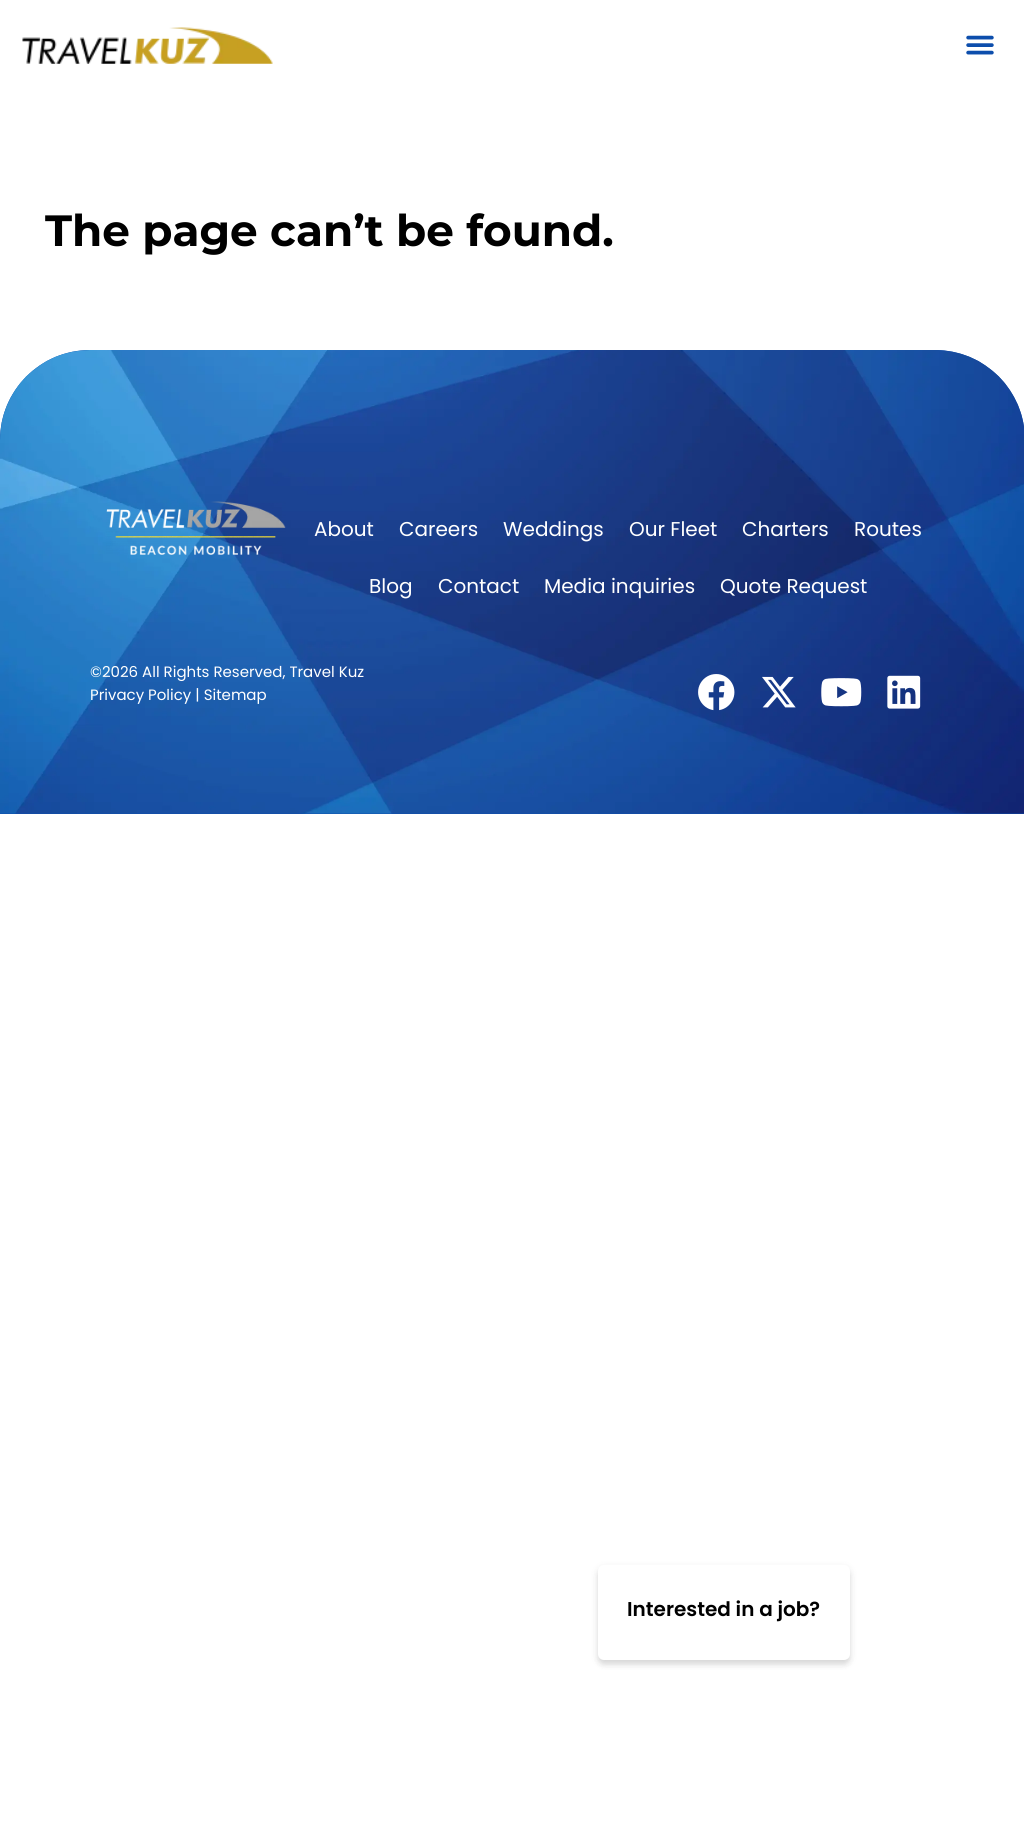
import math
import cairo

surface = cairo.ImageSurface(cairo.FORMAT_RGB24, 1024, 1823)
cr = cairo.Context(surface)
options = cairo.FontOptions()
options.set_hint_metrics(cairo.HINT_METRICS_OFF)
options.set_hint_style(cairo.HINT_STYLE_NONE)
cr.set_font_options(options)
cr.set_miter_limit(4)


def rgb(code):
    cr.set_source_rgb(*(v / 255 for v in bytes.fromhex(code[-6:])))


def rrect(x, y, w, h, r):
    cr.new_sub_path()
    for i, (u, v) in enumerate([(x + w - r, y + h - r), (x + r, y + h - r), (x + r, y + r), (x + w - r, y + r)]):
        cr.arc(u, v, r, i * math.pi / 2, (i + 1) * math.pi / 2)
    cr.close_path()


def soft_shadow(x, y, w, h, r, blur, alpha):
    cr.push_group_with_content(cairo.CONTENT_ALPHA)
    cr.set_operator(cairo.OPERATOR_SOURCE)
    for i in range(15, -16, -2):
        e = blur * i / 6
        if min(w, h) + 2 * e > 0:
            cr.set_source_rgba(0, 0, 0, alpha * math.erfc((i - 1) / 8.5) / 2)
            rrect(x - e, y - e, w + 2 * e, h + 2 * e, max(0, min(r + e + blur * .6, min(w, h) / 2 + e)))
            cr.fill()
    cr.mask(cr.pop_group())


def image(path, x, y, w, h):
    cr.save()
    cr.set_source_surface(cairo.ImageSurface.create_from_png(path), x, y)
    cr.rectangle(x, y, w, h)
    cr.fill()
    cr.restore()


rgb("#ffffff")
cr.paint()
image("img/1.png", 22, 27, 251, 37)
image("img/2.png", 966, 35, 28, 20)
rgb("#0d4eac")
cr.new_path()
cr.move_to(90, 350)
cr.line_to(935, 350)
cr.curve_to(984.5, 350, 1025, 390.5, 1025, 440)
cr.line_to(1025, 814)
cr.line_to(0, 814)
cr.line_to(0, 440)
cr.curve_to(0, 390.5, 40.5, 350, 90, 350)
cr.close_path()
cr.fill()
image("img/3.png", 0, 350, 1024, 464)
image("img/4.png", 106, 501, 180, 54)
image("img/5.png", 698, 674, 37, 37)
image("img/6.png", 762, 676, 34, 32)
image("img/7.png", 821, 678, 41, 29)
image("img/8.png", 887, 675, 34, 34)
rgb("#1e1e1f")
soft_shadow(598, 1568, 252, 95, 6, 4, 0.1)
soft_shadow(598, 1570, 252, 95, 6, 2.5, 0.1)
rgb("#ffffff")
rrect(598, 1565, 252, 95, 6)
cr.fill()
cr.select_font_face("Montserrat", cairo.FONT_SLANT_NORMAL, cairo.FONT_WEIGHT_BOLD)
cr.set_font_size(43.75)
rgb("#000000")
cr.move_to(45, 246)
cr.show_text("The page can’t be found.")
cr.select_font_face("Poppins")
cr.set_font_size(20)
rgb("#ffffff")
for x, y, s in [
    (314, 536, "About"),
    (399, 536, "Careers"),
    (503, 536, "Weddings"),
    (629, 536, "Our Fleet"),
    (742, 536, "Charters"),
    (854, 536, "Routes"),
    (369, 593, "Blog"),
    (438, 593, "Contact"),
    (544, 593, "Media inquiries"),
    (720, 593, "Quote Request"),
]:
    cr.move_to(x, y)
    cr.show_text(s)
cr.set_font_size(15)
cr.move_to(90, 677)
cr.show_text("©2026 All Rights Reserved, Travel Kuz")
cr.move_to(90, 700)
cr.show_text("Privacy Policy | Sitemap")
cr.select_font_face("Poppins SemiBold")
cr.set_font_size(20)
rgb("#000000")
cr.move_to(627, 1616)
cr.show_text("Interested in a job?")
surface.write_to_png("page.png")
